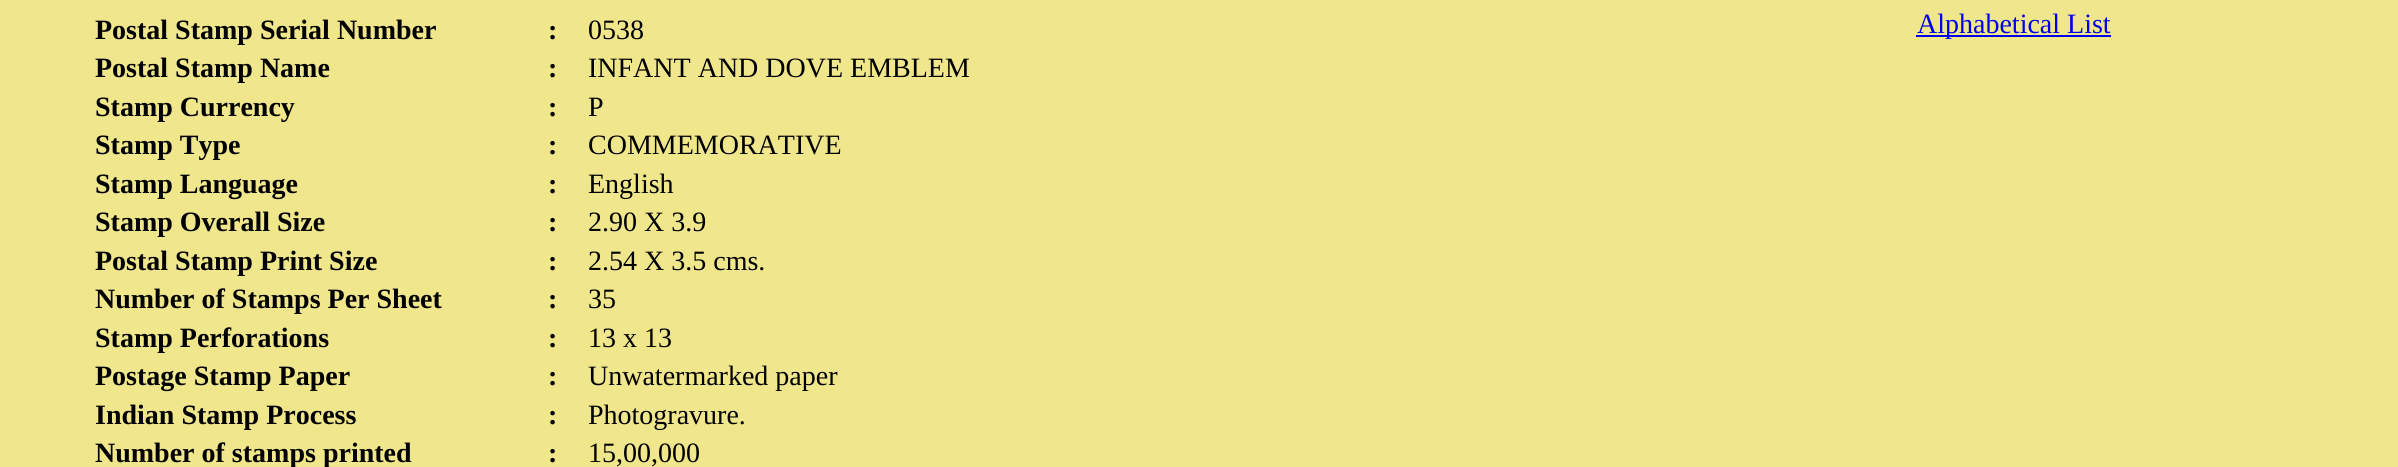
import math
import cairo

surface = cairo.ImageSurface(cairo.FORMAT_RGB24, 2398, 467)
cr = cairo.Context(surface)
options = cairo.FontOptions()
options.set_hint_metrics(cairo.HINT_METRICS_OFF)
options.set_hint_style(cairo.HINT_STYLE_NONE)
cr.set_font_options(options)
cr.set_miter_limit(4)


def rgb(code):
    cr.set_source_rgb(*(v / 255 for v in bytes.fromhex(code[-6:])))


rgb("#f0e68c")
cr.paint()
rgb("#0000ee")
cr.rectangle(1916, 35, 195, 2)
cr.fill()
cr.select_font_face("Liberation Serif", cairo.FONT_SLANT_NORMAL, cairo.FONT_WEIGHT_BOLD)
cr.set_font_size(28)
rgb("#000000")
cr.move_to(95, 39)
cr.show_text("Postal Stamp Serial Number")
cr.move_to(548, 39)
cr.show_text(":")
cr.select_font_face("Liberation Serif")
cr.move_to(588, 39)
cr.show_text("0538")
cr.select_font_face("Liberation Serif", cairo.FONT_SLANT_NORMAL, cairo.FONT_WEIGHT_BOLD)
cr.move_to(95, 77)
cr.show_text("Postal Stamp Name")
cr.move_to(548, 77)
cr.show_text(":")
cr.select_font_face("Liberation Serif")
cr.move_to(588, 77)
cr.show_text("INFANT AND DOVE EMBLEM")
cr.select_font_face("Liberation Serif", cairo.FONT_SLANT_NORMAL, cairo.FONT_WEIGHT_BOLD)
cr.move_to(95, 116)
cr.show_text("Stamp Currency")
cr.move_to(548, 116)
cr.show_text(":")
cr.select_font_face("Liberation Serif")
cr.move_to(588, 116)
cr.show_text("P")
cr.select_font_face("Liberation Serif", cairo.FONT_SLANT_NORMAL, cairo.FONT_WEIGHT_BOLD)
cr.move_to(95, 154)
cr.show_text("Stamp Type")
cr.move_to(548, 154)
cr.show_text(":")
cr.select_font_face("Liberation Serif")
cr.move_to(588, 154)
cr.show_text("COMMEMORATIVE")
cr.select_font_face("Liberation Serif", cairo.FONT_SLANT_NORMAL, cairo.FONT_WEIGHT_BOLD)
cr.move_to(95, 193)
cr.show_text("Stamp Language")
cr.move_to(548, 193)
cr.show_text(":")
cr.select_font_face("Liberation Serif")
cr.move_to(588, 193)
cr.show_text("English")
cr.select_font_face("Liberation Serif", cairo.FONT_SLANT_NORMAL, cairo.FONT_WEIGHT_BOLD)
cr.move_to(95, 231)
cr.show_text("Stamp Overall Size")
cr.move_to(548, 231)
cr.show_text(":")
cr.select_font_face("Liberation Serif")
cr.move_to(588, 231)
cr.show_text("2.90 X 3.9")
cr.select_font_face("Liberation Serif", cairo.FONT_SLANT_NORMAL, cairo.FONT_WEIGHT_BOLD)
cr.move_to(95, 270)
cr.show_text("Postal Stamp Print Size")
cr.move_to(548, 270)
cr.show_text(":")
cr.select_font_face("Liberation Serif")
cr.move_to(588, 270)
cr.show_text("2.54 X 3.5 cms.")
cr.select_font_face("Liberation Serif", cairo.FONT_SLANT_NORMAL, cairo.FONT_WEIGHT_BOLD)
cr.move_to(95, 308)
cr.show_text("Number of Stamps Per Sheet")
cr.move_to(548, 308)
cr.show_text(":")
cr.select_font_face("Liberation Serif")
cr.move_to(588, 308)
cr.show_text("35")
cr.select_font_face("Liberation Serif", cairo.FONT_SLANT_NORMAL, cairo.FONT_WEIGHT_BOLD)
cr.move_to(95, 347)
cr.show_text("Stamp Perforations")
cr.move_to(548, 347)
cr.show_text(":")
cr.select_font_face("Liberation Serif")
cr.move_to(588, 347)
cr.show_text("13 x 13")
cr.select_font_face("Liberation Serif", cairo.FONT_SLANT_NORMAL, cairo.FONT_WEIGHT_BOLD)
cr.move_to(95, 385)
cr.show_text("Postage Stamp Paper")
cr.move_to(548, 385)
cr.show_text(":")
cr.select_font_face("Liberation Serif")
cr.move_to(588, 385)
cr.show_text("Unwatermarked paper")
cr.select_font_face("Liberation Serif", cairo.FONT_SLANT_NORMAL, cairo.FONT_WEIGHT_BOLD)
cr.move_to(95, 424)
cr.show_text("Indian Stamp Process")
cr.move_to(548, 424)
cr.show_text(":")
cr.select_font_face("Liberation Serif")
cr.move_to(588, 424)
cr.show_text("Photogravure.")
cr.select_font_face("Liberation Serif", cairo.FONT_SLANT_NORMAL, cairo.FONT_WEIGHT_BOLD)
cr.move_to(95, 462)
cr.show_text("Number of stamps printed")
cr.move_to(548, 462)
cr.show_text(":")
cr.select_font_face("Liberation Serif")
cr.move_to(588, 462)
cr.show_text("15,00,000")
rgb("#0000ee")
cr.move_to(1917, 33)
cr.show_text("Alphabetical List")
surface.write_to_png("page.png")
